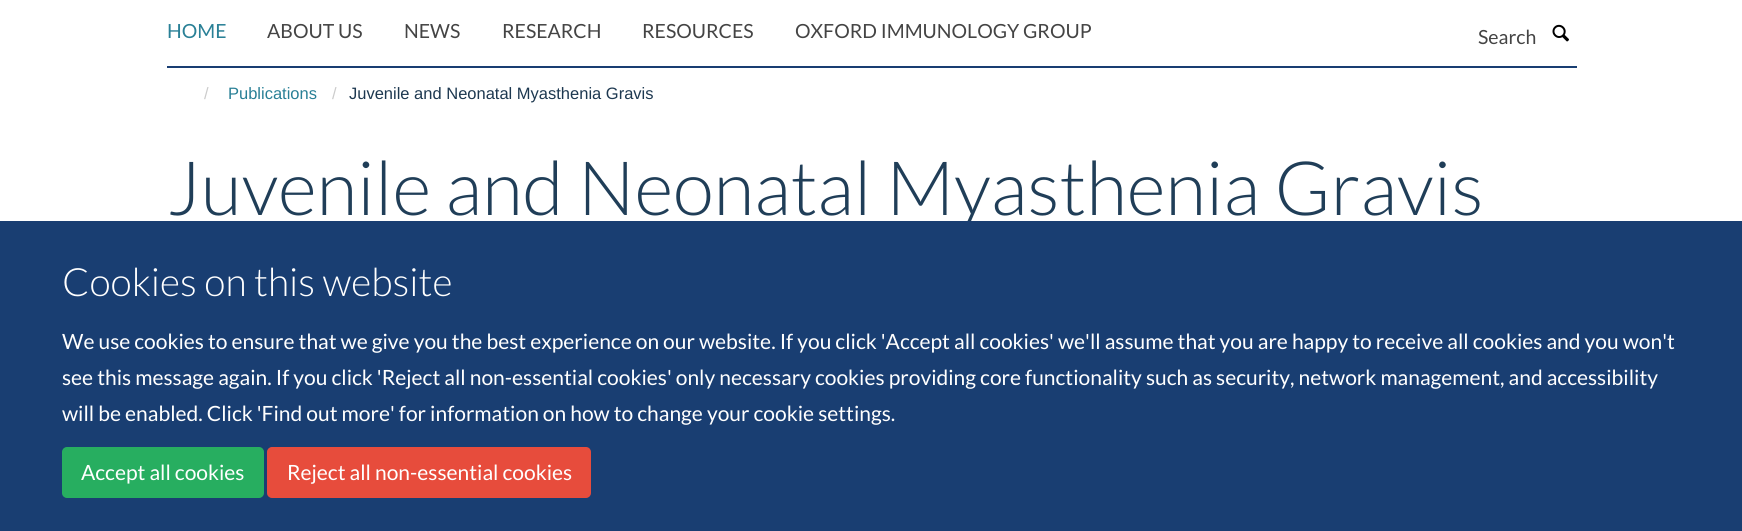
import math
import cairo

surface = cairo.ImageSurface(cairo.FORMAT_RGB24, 1742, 531)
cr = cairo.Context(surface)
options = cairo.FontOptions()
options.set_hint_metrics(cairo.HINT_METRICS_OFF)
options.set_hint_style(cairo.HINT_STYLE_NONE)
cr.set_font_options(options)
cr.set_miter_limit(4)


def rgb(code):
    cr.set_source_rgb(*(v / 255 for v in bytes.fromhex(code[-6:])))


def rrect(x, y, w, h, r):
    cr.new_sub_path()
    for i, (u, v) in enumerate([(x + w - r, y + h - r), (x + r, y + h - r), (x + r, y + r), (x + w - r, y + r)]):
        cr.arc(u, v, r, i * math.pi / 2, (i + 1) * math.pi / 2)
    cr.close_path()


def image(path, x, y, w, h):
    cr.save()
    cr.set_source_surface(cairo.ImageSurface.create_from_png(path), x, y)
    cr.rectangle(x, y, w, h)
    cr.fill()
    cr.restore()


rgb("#ffffff")
cr.paint()
rgb("#193e72")
cr.rectangle(167, 66, 1410, 2)
cr.fill()
image("img/1.png", 1552, 24, 17, 18)
cr.select_font_face("Lato")
cr.set_font_size(19.5)
rgb("#298096")
cr.move_to(167, 38)
cr.show_text("HOME")
rgb("#444444")
for x, y, s in [
    (267, 38, "ABOUT US"),
    (404, 38, "NEWS"),
    (502, 38, "RESEARCH"),
    (642, 38, "RESOURCES"),
    (795, 38, "OXFORD IMMUNOLOGY GROUP"),
    (1478, 44, "Search"),
]:
    cr.move_to(x, y)
    cr.show_text(s)
cr.select_font_face("Liberation Sans")
cr.set_font_size(16.5)
rgb("#cccccc")
cr.move_to(204, 99)
cr.show_text("/")
rgb("#298096")
cr.move_to(228, 99)
cr.show_text("Publications")
rgb("#cccccc")
cr.move_to(332, 99)
cr.show_text("/")
rgb("#1d3850")
cr.move_to(349, 99)
cr.show_text("Juvenile and Neonatal Myasthenia Gravis")
cr.select_font_face("Lato Light")
cr.set_font_size(75)
rgb("#203e58")
cr.move_to(167, 215)
cr.show_text("Juvenile and Neonatal Myasthenia Gravis")
rgb("#193e72")
cr.rectangle(0, 221, 1742, 310)
cr.fill()
cr.set_font_size(39)
rgb("#ffffff")
cr.move_to(62, 296)
cr.show_text("Cookies on this website")
cr.select_font_face("Lato")
cr.set_font_size(21)
for x, y, s in [
    (62, 349, "We use cookies to ensure that we give you the best experience on our website. If you click 'Accept all cookies' we'll assume that you are happy to receive all cookies and you won't"),
    (62, 385, "see this message again. If you click 'Reject all non-essential cookies' only necessary cookies providing core functionality such as security, network management, and accessibility"),
    (62, 421, "will be enabled. Click 'Find out more' for information on how to change your cookie settings."),
]:
    cr.move_to(x, y)
    cr.show_text(s)
rgb("#27ae60")
rrect(63, 448, 200, 49, 4)
cr.fill_preserve()
cr.stroke()
rgb("#ffffff")
cr.move_to(81, 480)
cr.show_text("Accept all cookies")
rgb("#e74c3c")
rrect(268, 448, 322, 49, 4)
cr.fill_preserve()
cr.stroke()
rgb("#ffffff")
cr.move_to(287, 480)
cr.show_text("Reject all non-essential cookies")
surface.write_to_png("page.png")
